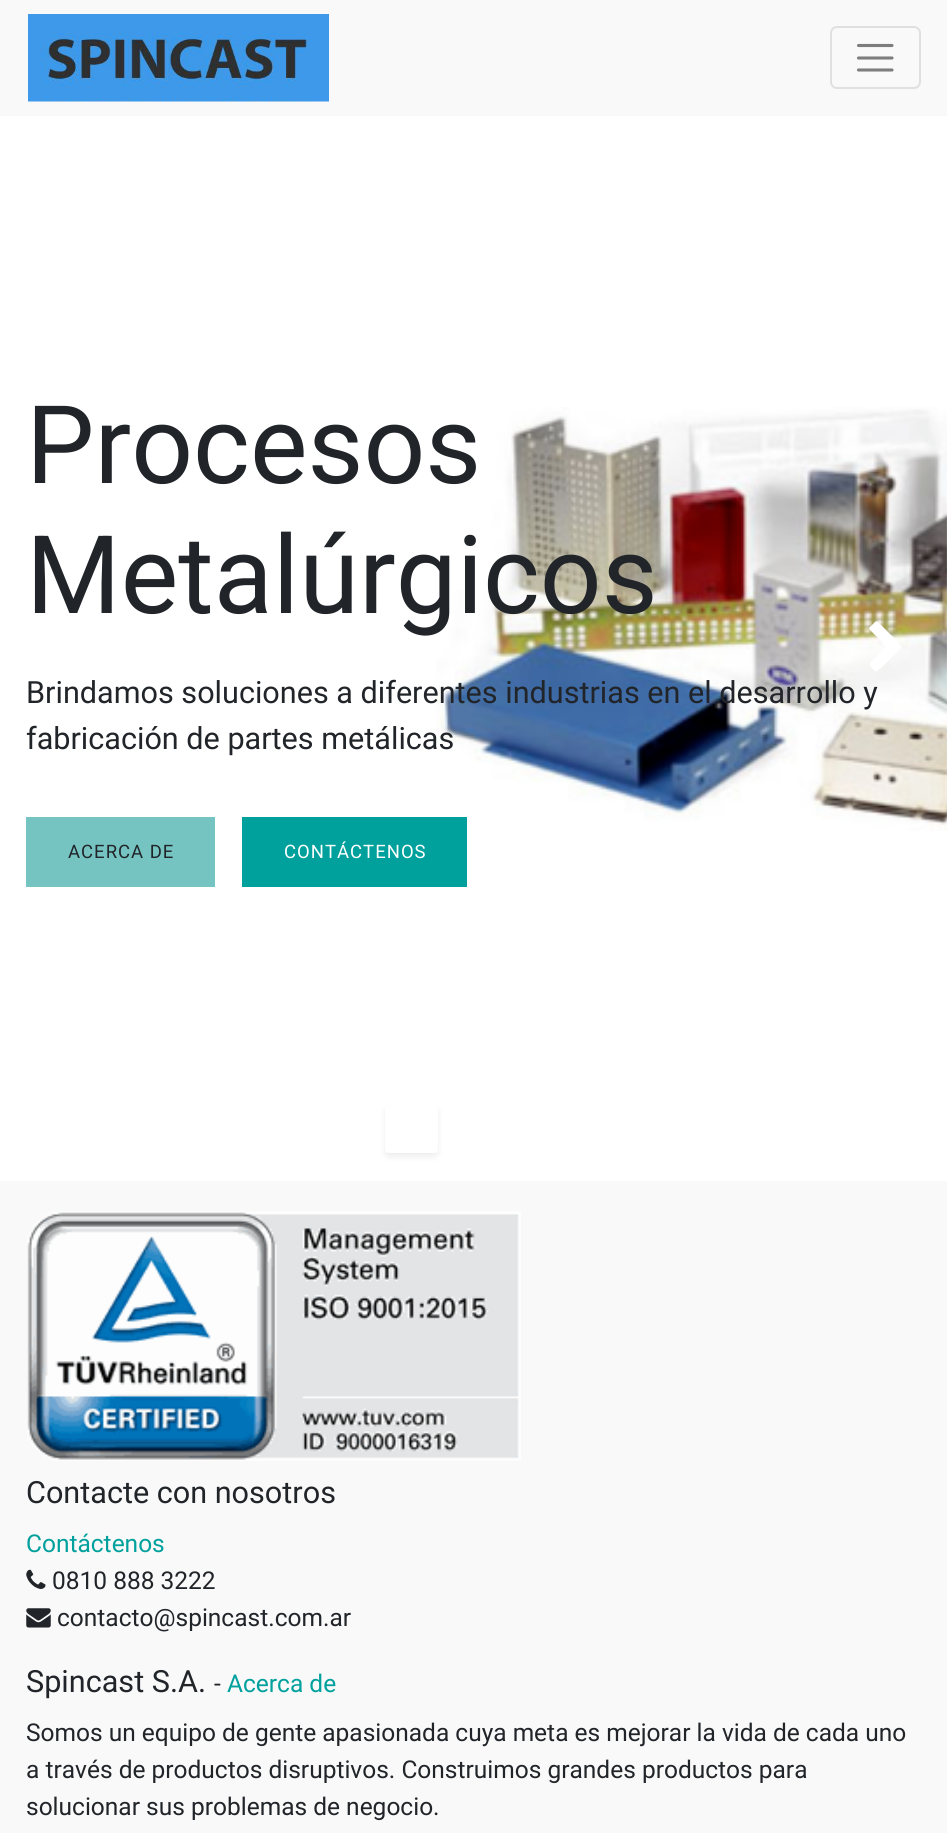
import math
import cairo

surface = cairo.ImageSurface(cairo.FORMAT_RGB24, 947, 1833)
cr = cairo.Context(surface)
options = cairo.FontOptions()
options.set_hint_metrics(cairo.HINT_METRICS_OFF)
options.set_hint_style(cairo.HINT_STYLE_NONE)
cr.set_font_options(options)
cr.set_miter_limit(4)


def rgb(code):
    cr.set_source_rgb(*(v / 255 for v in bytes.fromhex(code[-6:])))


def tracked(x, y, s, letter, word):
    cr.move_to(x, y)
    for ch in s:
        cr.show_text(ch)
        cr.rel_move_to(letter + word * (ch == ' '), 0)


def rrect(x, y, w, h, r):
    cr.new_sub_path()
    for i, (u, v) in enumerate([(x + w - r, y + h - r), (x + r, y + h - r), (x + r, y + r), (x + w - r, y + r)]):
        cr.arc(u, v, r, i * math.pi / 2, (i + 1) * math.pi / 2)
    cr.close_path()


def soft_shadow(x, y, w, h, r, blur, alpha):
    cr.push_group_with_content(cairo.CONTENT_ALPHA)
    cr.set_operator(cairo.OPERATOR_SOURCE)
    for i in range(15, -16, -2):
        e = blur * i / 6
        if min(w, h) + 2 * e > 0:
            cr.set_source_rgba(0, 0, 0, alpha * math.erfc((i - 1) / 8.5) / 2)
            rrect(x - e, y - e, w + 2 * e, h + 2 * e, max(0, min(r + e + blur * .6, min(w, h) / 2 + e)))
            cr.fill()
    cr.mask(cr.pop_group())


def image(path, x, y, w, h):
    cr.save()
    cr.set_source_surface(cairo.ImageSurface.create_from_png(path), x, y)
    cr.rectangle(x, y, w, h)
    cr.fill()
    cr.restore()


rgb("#ffffff")
cr.paint()
rgb("#f9f9f9")
cr.rectangle(0, 0, 947, 116)
cr.fill()
image("img/1.png", 28, 14, 301, 88)
rrect(831, 27, 89, 61, 6)
rgb("#e0e0e0")
cr.stroke()
cr.new_path()
cr.move_to(858.5, 45.5)
cr.line_to(892, 45.5)
cr.move_to(858.5, 58)
cr.line_to(892, 58)
cr.move_to(858.5, 70)
cr.line_to(892, 70)
rgb("#7d7d7d")
cr.set_line_width(3.1)
cr.set_line_cap(cairo.LINE_CAP_ROUND)
cr.stroke()
image("img/2.png", 436, 407, 511, 424)
rgb("#75c4c2")
cr.rectangle(26, 817, 189, 70)
cr.fill()
rgb("#00a09d")
cr.rectangle(242, 817, 225, 70)
cr.fill()
rgb("#ffffff")
cr.new_path()
cr.move_to(901, 648)
cr.line_to(882, 667)
cr.curve_to(875, 673, 877, 673, 871, 667)
cr.curve_to(867, 663, 872, 661, 875, 658)
cr.line_to(886, 646)
cr.line_to(869, 629)
cr.curve_to(869, 627, 871, 626, 872, 625)
cr.curve_to(877, 620, 876, 620, 882, 626)
cr.line_to(897, 641)
cr.curve_to(897, 642, 902, 645, 901, 647)
cr.close_path()
cr.fill()
cr.save()
cr.set_fill_rule(cairo.FILL_RULE_EVEN_ODD)
cr.new_path()
cr.move_to(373, 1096)
cr.line_to(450, 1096)
cr.line_to(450, 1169)
cr.line_to(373, 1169)
cr.close_path()
cr.move_to(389, 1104)
cr.line_to(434, 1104)
cr.curve_to(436, 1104, 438, 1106, 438, 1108)
cr.line_to(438, 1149)
cr.curve_to(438, 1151, 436, 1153, 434, 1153)
cr.line_to(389, 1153)
cr.curve_to(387, 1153, 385, 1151, 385, 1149)
cr.line_to(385, 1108)
cr.curve_to(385, 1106, 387, 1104, 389, 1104)
cr.close_path()
cr.clip()
rgb("#000000")
soft_shadow(385, 1108, 53, 49, 4, 3.5, 0.07)
cr.restore()
cr.new_path()
cr.move_to(388, 1122)
cr.line_to(438, 1122)
cr.line_to(438, 1136)
cr.line_to(385, 1136)
cr.line_to(385, 1122)
cr.close_path()
cr.fill()
rgb("#f9f9f9")
cr.rectangle(0, 1181, 947, 652)
cr.fill()
image("img/3.png", 27, 1211, 494, 250)
image("img/4.png", 26, 1569, 20, 20)
image("img/5.png", 26, 1608, 25, 20)
cr.select_font_face("Roboto")
cr.set_font_size(108.5)
rgb("#212529")
cr.move_to(26, 483)
cr.show_text("Procesos")
cr.move_to(26, 613)
cr.show_text("Metalúrgicos")
cr.set_font_size(30.6)
cr.move_to(26, 703)
cr.show_text("Brindamos soluciones a diferentes industrias en el desarrollo y")
cr.move_to(26, 749)
cr.show_text("fabricación de partes metálicas")
cr.set_font_size(18.5)
tracked(68, 858, "ACERCA DE", 1, 0)
rgb("#ffffff")
tracked(284, 858, "CONTÁCTENOS", 1, 0)
cr.set_font_size(30.6)
rgb("#212529")
cr.move_to(26, 1503)
cr.show_text("Contacte con nosotros")
cr.set_font_size(24.5)
rgb("#00a09d")
cr.move_to(26, 1552)
cr.show_text("Contáctenos")
rgb("#212529")
cr.move_to(52, 1589)
cr.show_text("0810 888 3222")
cr.move_to(57, 1626)
cr.show_text("contacto@spincast.com.ar")
cr.set_font_size(30.6)
cr.move_to(26, 1692)
cr.show_text("Spincast S.A.")
cr.set_font_size(24.5)
cr.move_to(214, 1692)
cr.show_text("-")
rgb("#00a09d")
cr.move_to(227, 1692)
cr.show_text("Acerca de")
rgb("#212529")
for x, y, s in [
    (26, 1741, "Somos un equipo de gente apasionada cuya meta es mejorar la vida de cada uno"),
    (26, 1778, "a través de productos disruptivos. Construimos grandes productos para"),
    (26, 1815, "solucionar sus problemas de negocio."),
]:
    cr.move_to(x, y)
    cr.show_text(s)
surface.write_to_png("page.png")
